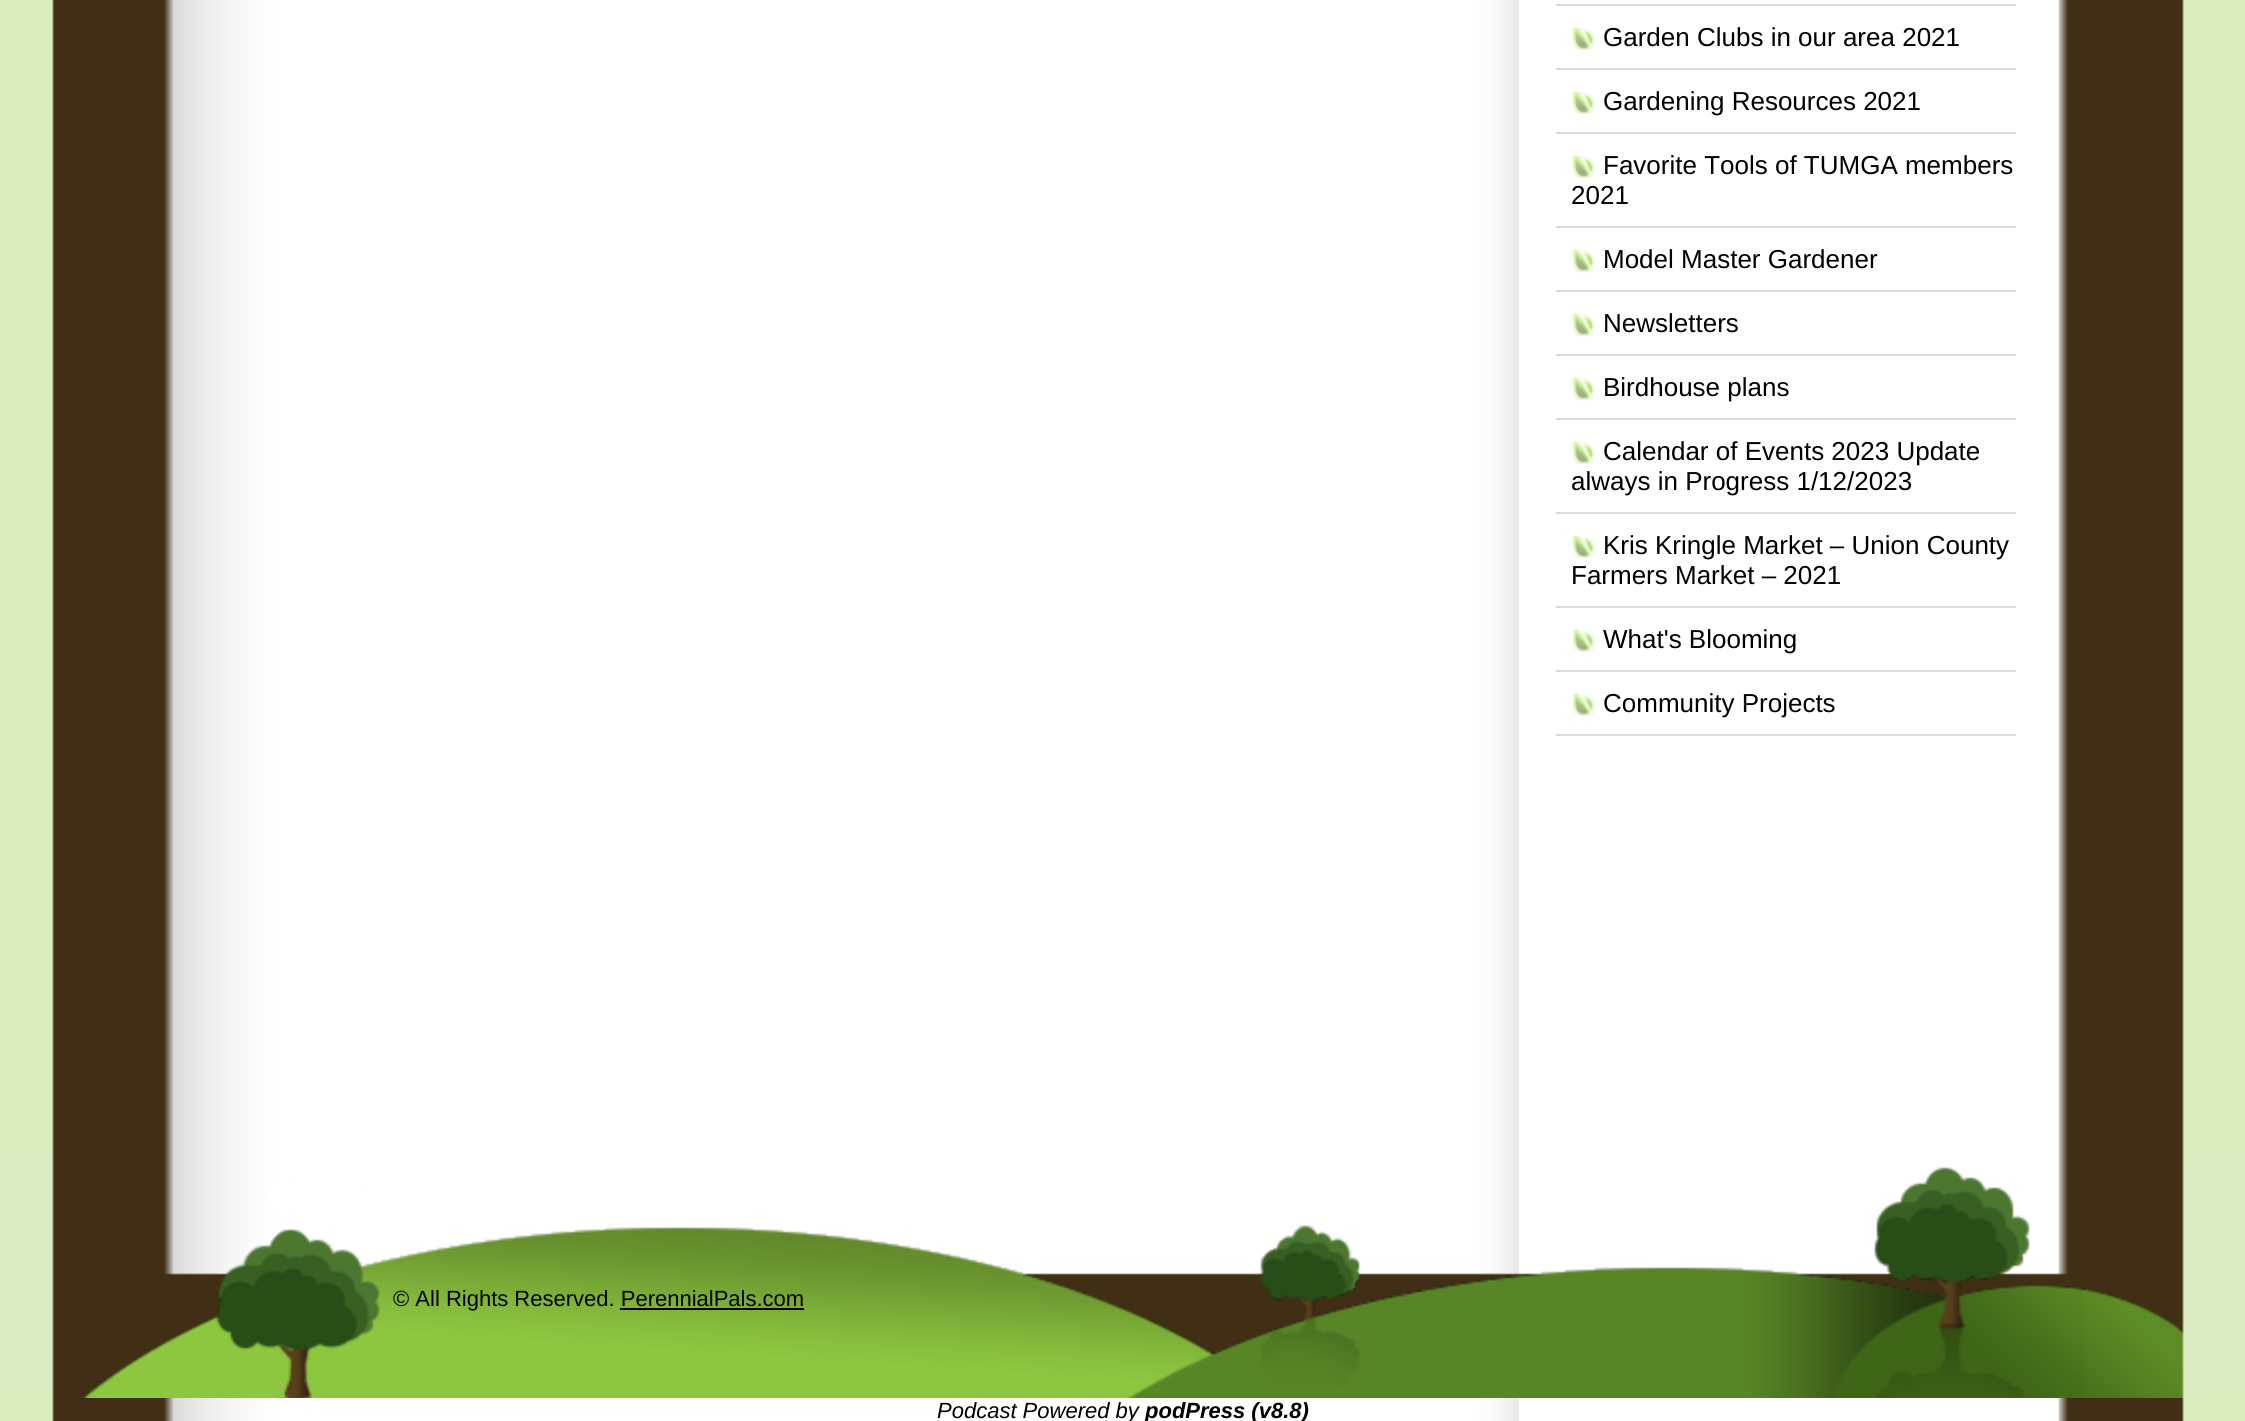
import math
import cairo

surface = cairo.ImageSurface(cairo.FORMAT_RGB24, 2245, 1421)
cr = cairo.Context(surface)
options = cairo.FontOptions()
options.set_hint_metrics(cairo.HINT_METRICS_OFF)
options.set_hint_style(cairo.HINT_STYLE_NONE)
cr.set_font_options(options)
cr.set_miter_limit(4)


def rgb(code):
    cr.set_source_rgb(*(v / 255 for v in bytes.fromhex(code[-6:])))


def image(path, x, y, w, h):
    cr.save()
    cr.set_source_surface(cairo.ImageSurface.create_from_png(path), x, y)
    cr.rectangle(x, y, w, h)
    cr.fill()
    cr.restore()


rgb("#d8ecbd")
cr.paint()
image("img/1.png", 52, 0, 2132, 1421)
rgb("#dbdbdb")
cr.rectangle(1556, 4, 460, 2)
cr.fill()
cr.rectangle(1556, 68, 460, 2)
cr.fill()
image("img/2.png", 1572, 28, 22, 22)
cr.rectangle(1556, 132, 460, 2)
cr.fill()
image("img/2.png", 1572, 92, 22, 22)
cr.rectangle(1556, 226, 460, 2)
cr.fill()
image("img/2.png", 1572, 156, 22, 22)
cr.rectangle(1556, 290, 460, 2)
cr.fill()
image("img/2.png", 1572, 250, 22, 22)
cr.rectangle(1556, 354, 460, 2)
cr.fill()
image("img/2.png", 1572, 314, 22, 22)
cr.rectangle(1556, 418, 460, 2)
cr.fill()
image("img/2.png", 1572, 378, 22, 22)
cr.rectangle(1556, 512, 460, 2)
cr.fill()
image("img/2.png", 1572, 442, 22, 22)
cr.rectangle(1556, 606, 460, 2)
cr.fill()
image("img/2.png", 1572, 536, 22, 22)
cr.rectangle(1556, 670, 460, 2)
cr.fill()
image("img/2.png", 1572, 630, 22, 22)
cr.rectangle(1556, 734, 460, 2)
cr.fill()
image("img/2.png", 1572, 694, 22, 22)
rgb("#daecc1")
cr.rectangle(0, 1156, 2245, 242)
cr.fill()
image("img/3.png", 52, 1156, 2132, 242)
rgb("#000000")
cr.rectangle(620, 1308, 184, 2)
cr.fill()
cr.select_font_face("Liberation Sans")
cr.set_font_size(26)
for x, y, s in [
    (1603, 46, "Garden Clubs in our area 2021"),
    (1603, 110, "Gardening Resources 2021"),
    (1603, 174, "Favorite Tools of TUMGA members"),
    (1571, 204, "2021"),
    (1603, 268, "Model Master Gardener"),
    (1603, 332, "Newsletters"),
    (1603, 396, "Birdhouse plans"),
    (1603, 460, "Calendar of Events 2023 Update"),
    (1571, 490, "always in Progress 1/12/2023"),
    (1603, 554, "Kris Kringle Market – Union County"),
    (1571, 584, "Farmers Market – 2021"),
    (1603, 648, "What's Blooming"),
    (1603, 712, "Community Projects"),
]:
    cr.move_to(x, y)
    cr.show_text(s)
cr.set_font_size(22)
cr.move_to(393, 1306)
cr.show_text("© All Rights Reserved. PerennialPals.com")
cr.select_font_face("Liberation Sans", cairo.FONT_SLANT_ITALIC)
cr.move_to(937, 1418)
cr.show_text("Podcast Powered by")
cr.select_font_face("Liberation Sans", cairo.FONT_SLANT_ITALIC, cairo.FONT_WEIGHT_BOLD)
cr.move_to(1145, 1418)
cr.show_text("podPress (v8.8)")
surface.write_to_png("page.png")
